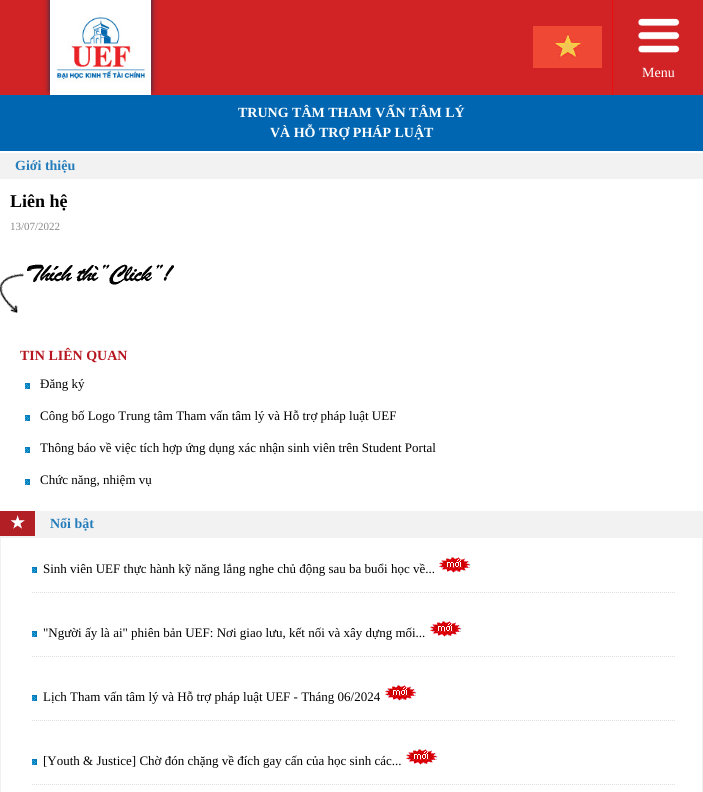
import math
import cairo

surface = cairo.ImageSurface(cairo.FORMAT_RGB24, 703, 792)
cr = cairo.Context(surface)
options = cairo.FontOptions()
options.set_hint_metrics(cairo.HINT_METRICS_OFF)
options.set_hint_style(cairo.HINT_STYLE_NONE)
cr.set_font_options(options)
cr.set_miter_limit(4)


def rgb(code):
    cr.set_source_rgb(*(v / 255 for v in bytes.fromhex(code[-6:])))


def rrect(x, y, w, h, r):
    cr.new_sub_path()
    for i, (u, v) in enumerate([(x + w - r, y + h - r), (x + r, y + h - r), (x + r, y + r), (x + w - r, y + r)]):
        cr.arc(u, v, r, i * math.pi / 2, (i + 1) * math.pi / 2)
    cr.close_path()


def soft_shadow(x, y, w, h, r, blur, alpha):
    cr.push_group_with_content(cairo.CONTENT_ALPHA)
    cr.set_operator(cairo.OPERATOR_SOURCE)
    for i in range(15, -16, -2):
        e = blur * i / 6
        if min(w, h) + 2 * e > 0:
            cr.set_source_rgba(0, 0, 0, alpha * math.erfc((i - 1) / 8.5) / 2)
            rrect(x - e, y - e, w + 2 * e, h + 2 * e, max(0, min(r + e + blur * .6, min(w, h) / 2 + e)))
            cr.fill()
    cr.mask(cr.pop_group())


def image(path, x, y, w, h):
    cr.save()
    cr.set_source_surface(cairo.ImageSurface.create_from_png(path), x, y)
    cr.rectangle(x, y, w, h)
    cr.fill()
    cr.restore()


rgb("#ffffff")
cr.paint()
rgb("#d12325")
cr.rectangle(0, 0, 703, 95)
cr.fill()
rgb("#0066b1")
cr.rectangle(0, 95, 703, 56)
cr.fill()
rgb("#032f50")
soft_shadow(50, -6, 101, 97, 0, 3, 1)
image("img/1.png", 50, 0, 101, 95)
image("img/2.png", 533, 26, 69, 42)
rgb("#ed0d0d")
cr.rectangle(612, 0, 1, 95)
cr.fill()
image("img/3.png", 638, 18, 42, 35)
rgb("#f2f2f2")
cr.rectangle(0, 153, 703, 26)
cr.fill()
image("img/4.png", 0, 264, 174, 49)
image("img/5.png", 25, 383, 5, 6)
image("img/5.png", 25, 415, 5, 6)
image("img/5.png", 25, 447, 5, 6)
image("img/5.png", 25, 479, 5, 6)
cr.rectangle(0, 511, 703, 26)
cr.fill()
image("img/6.png", 0, 511, 35, 25)
cr.rectangle(0.5, 537.5, 702, 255)
rgb("#f1f1f1")
cr.set_line_width(1)
cr.stroke()
image("img/5.png", 32, 567, 5, 6)
image("img/7.png", 439, 557, 32, 16)
cr.new_path()
cr.move_to(32, 592.5)
cr.line_to(676, 592.5)
rgb("#dedede")
cr.set_dash([1, 1])
cr.stroke()
image("img/5.png", 32, 631, 5, 6)
image("img/7.png", 430, 621, 32, 16)
cr.new_path()
cr.move_to(32, 656.5)
cr.line_to(676, 656.5)
cr.stroke()
image("img/5.png", 32, 695, 5, 6)
image("img/7.png", 385, 685, 32, 16)
cr.new_path()
cr.move_to(32, 720.5)
cr.line_to(676, 720.5)
cr.stroke()
image("img/5.png", 32, 759, 5, 6)
image("img/7.png", 406, 749, 32, 16)
cr.new_path()
cr.move_to(32, 784.5)
cr.line_to(676, 784.5)
cr.stroke()
cr.select_font_face("Liberation Serif")
cr.set_font_size(14)
rgb("#ffffff")
cr.move_to(642, 77)
cr.show_text("Menu")
cr.select_font_face("Liberation Serif", cairo.FONT_SLANT_NORMAL, cairo.FONT_WEIGHT_BOLD)
cr.move_to(238, 117)
cr.show_text("TRUNG TÂM THAM VẤN TÂM LÝ")
cr.move_to(270, 137)
cr.show_text("VÀ HỖ TRỢ PHÁP LUẬT")
rgb("#267dbb")
cr.move_to(15, 170)
cr.show_text("Giới thiệu")
cr.set_font_size(18)
rgb("#000000")
cr.move_to(10, 207)
cr.show_text("Liên hệ")
cr.select_font_face("Liberation Serif")
cr.set_font_size(11)
rgb("#888888")
cr.move_to(10, 230)
cr.show_text("13/07/2022")
cr.select_font_face("Liberation Serif", cairo.FONT_SLANT_NORMAL, cairo.FONT_WEIGHT_BOLD)
cr.set_font_size(14)
rgb("#b61620")
cr.move_to(20, 360)
cr.show_text("TIN LIÊN QUAN")
cr.select_font_face("Liberation Serif")
cr.set_font_size(13)
rgb("#000000")
for x, y, s in [
    (40, 388, "Đăng ký"),
    (40, 420, "Công bố Logo Trung tâm Tham vấn tâm lý và Hỗ trợ pháp luật UEF"),
    (40, 452, "Thông báo về việc tích hợp ứng dụng xác nhận sinh viên trên Student Portal"),
    (40, 484, "Chức năng, nhiệm vụ"),
]:
    cr.move_to(x, y)
    cr.show_text(s)
cr.select_font_face("Liberation Serif", cairo.FONT_SLANT_NORMAL, cairo.FONT_WEIGHT_BOLD)
cr.set_font_size(14)
rgb("#267dbb")
cr.move_to(50, 528)
cr.show_text("Nổi bật")
cr.select_font_face("Liberation Serif")
cr.set_font_size(13)
rgb("#000000")
for x, y, s in [
    (43, 573, "Sinh viên UEF thực hành kỹ năng lắng nghe chủ động sau ba buổi học về..."),
    (43, 637, "\"Người ấy là ai\" phiên bản UEF: Nơi giao lưu, kết nối và xây dựng mối..."),
    (43, 701, "Lịch Tham vấn tâm lý và Hỗ trợ pháp luật UEF - Tháng 06/2024"),
    (43, 765, "[Youth & Justice] Chờ đón chặng về đích gay cấn của học sinh các..."),
]:
    cr.move_to(x, y)
    cr.show_text(s)
surface.write_to_png("page.png")
